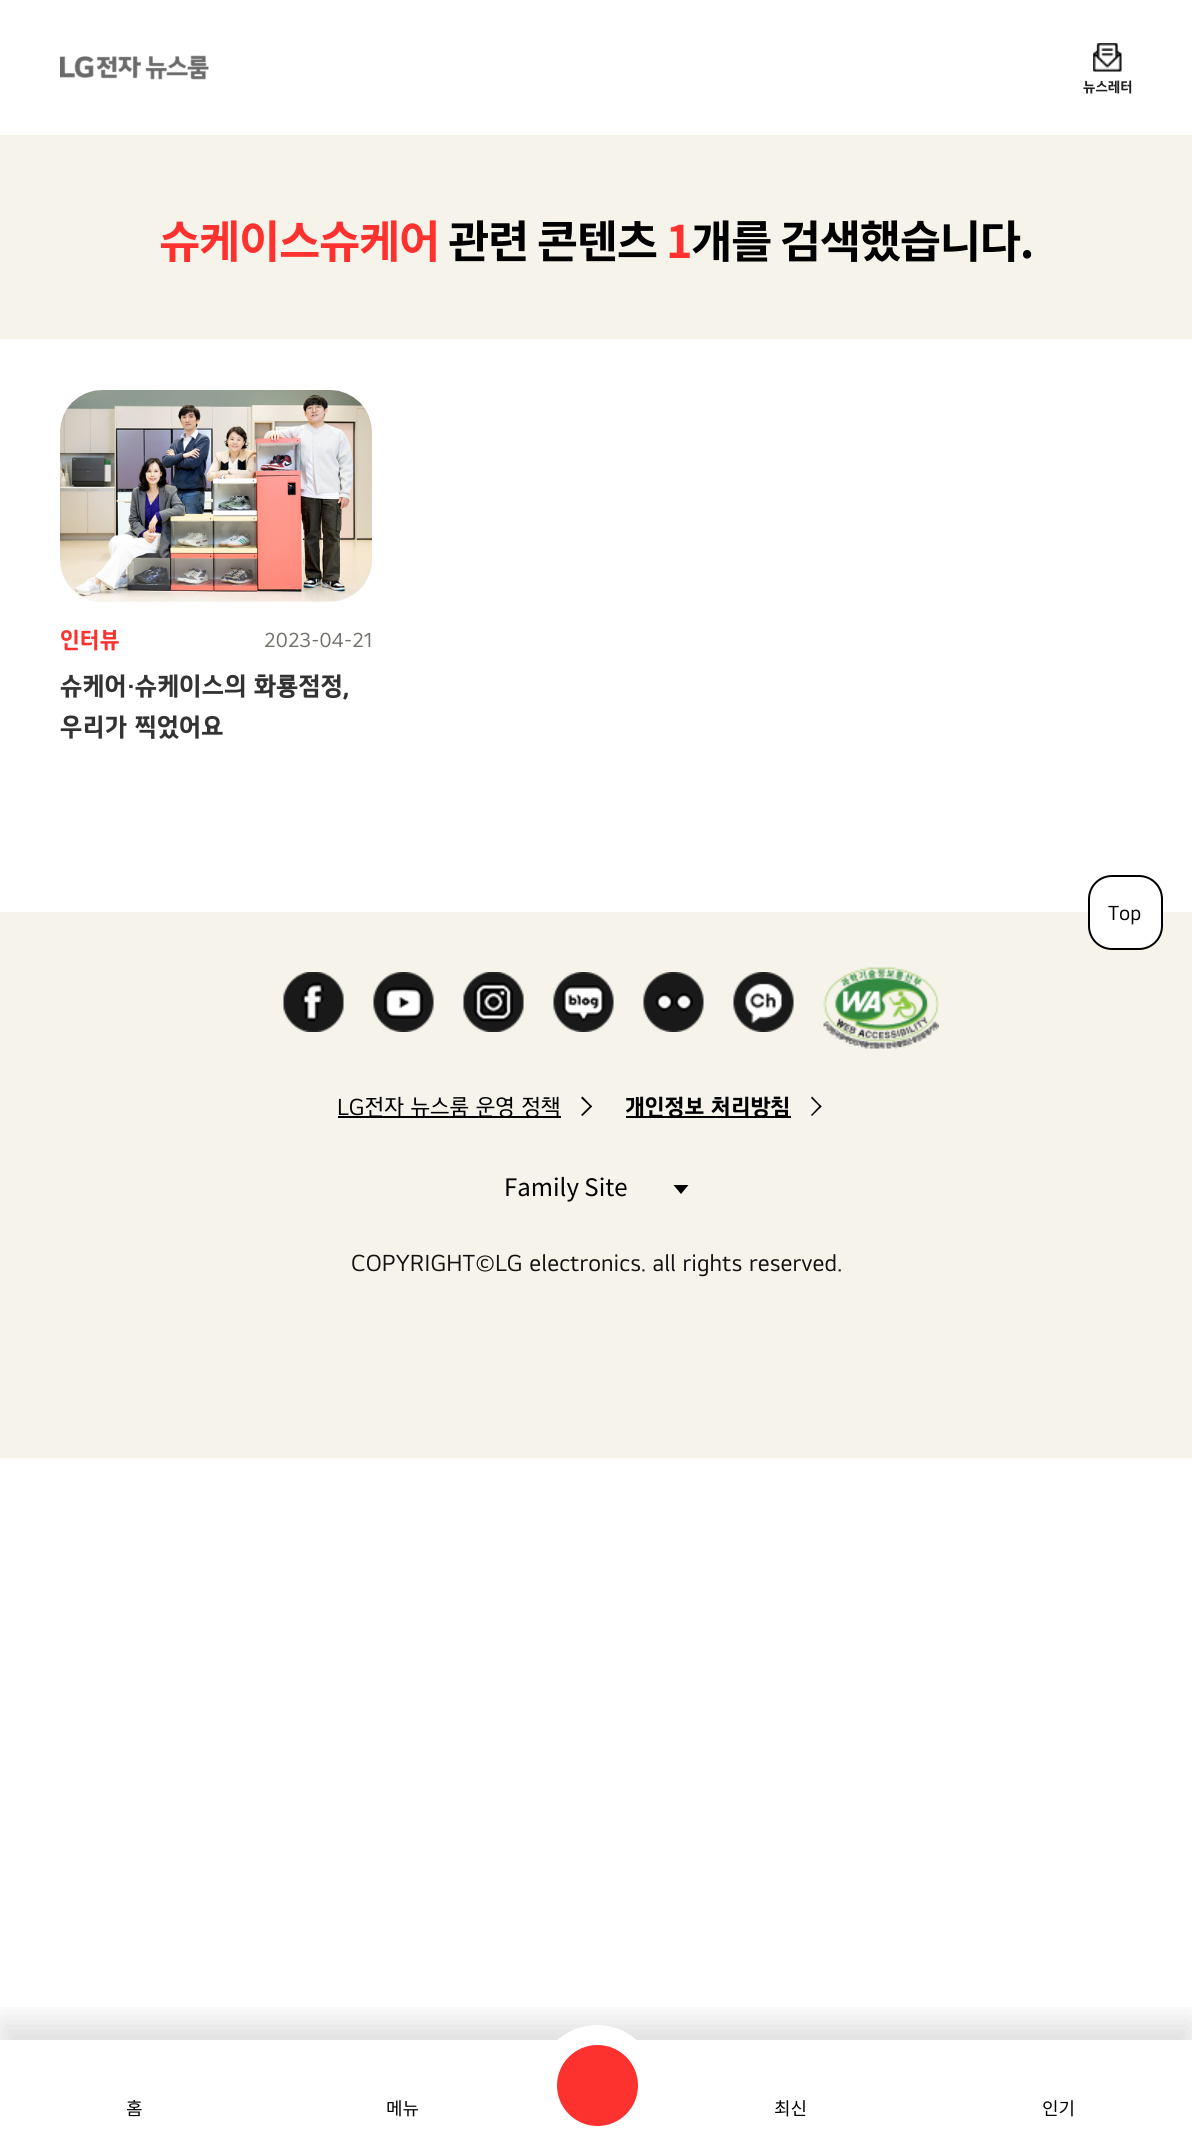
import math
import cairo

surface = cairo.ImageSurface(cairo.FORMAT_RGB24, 1192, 2145)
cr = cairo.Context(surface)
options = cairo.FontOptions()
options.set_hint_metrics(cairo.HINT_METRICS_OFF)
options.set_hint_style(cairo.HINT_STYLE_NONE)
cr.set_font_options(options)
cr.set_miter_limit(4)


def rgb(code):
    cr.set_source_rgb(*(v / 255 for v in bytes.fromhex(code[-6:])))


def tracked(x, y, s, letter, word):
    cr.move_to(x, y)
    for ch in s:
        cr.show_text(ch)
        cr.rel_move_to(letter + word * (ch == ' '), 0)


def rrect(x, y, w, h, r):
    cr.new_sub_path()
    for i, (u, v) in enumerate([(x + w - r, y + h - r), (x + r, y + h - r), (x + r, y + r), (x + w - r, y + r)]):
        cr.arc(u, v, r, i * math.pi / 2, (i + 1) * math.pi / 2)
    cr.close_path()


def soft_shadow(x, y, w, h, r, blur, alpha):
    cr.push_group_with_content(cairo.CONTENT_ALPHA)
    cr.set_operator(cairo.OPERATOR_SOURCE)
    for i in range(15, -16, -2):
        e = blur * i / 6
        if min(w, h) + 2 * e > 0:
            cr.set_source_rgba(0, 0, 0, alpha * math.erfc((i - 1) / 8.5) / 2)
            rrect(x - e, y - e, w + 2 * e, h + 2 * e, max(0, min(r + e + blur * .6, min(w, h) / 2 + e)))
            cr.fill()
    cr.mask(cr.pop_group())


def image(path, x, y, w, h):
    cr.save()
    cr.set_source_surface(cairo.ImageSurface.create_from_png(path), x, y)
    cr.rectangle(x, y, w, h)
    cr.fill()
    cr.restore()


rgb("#ffffff")
cr.paint()
image("img/1.png", 60, 55, 149, 25)
image("img/2.png", 1093, 43, 29, 29)
rgb("#f6f3eb")
cr.rectangle(0, 135, 1192, 204)
cr.fill()
rgb("#f4f4f4")
rrect(60, 390, 312, 212, 42)
cr.fill()
image("img/3.png", 60, 390, 312, 212)
rgb("#f6f3eb")
cr.rectangle(0, 912, 1192, 546)
cr.fill()
rgb("#ffffff")
rrect(1089, 876, 73, 73, 23)
cr.fill_preserve()
rgb("#000000")
cr.stroke()
image("img/4.png", 283, 972, 61, 60)
image("img/5.png", 373, 972, 61, 60)
image("img/6.png", 463, 972, 61, 60)
image("img/7.png", 553, 972, 61, 60)
image("img/8.png", 643, 972, 61, 60)
image("img/9.png", 733, 972, 61, 60)
image("img/10.png", 823, 967, 116, 82)
cr.rectangle(338, 1116, 223, 2)
cr.fill()
cr.new_path()
cr.move_to(582.5, 1096.5)
cr.line_to(592, 1106.5)
cr.line_to(591, 1107.5)
cr.line_to(581, 1098)
cr.close_path()
cr.fill()
cr.new_path()
cr.move_to(591, 1105)
cr.line_to(592, 1106.5)
cr.line_to(582.5, 1116)
cr.line_to(581, 1115)
cr.close_path()
cr.fill()
cr.rectangle(626, 1116, 165, 2)
cr.fill()
cr.new_path()
cr.move_to(812, 1096.5)
cr.line_to(821.5, 1106.5)
cr.line_to(820.5, 1107.5)
cr.line_to(811, 1098)
cr.close_path()
cr.fill()
cr.new_path()
cr.move_to(820.5, 1105)
cr.line_to(821.5, 1106.5)
cr.line_to(812, 1116)
cr.line_to(811, 1115)
cr.close_path()
cr.fill()
cr.new_path()
cr.move_to(673.5, 1185)
cr.line_to(688.5, 1185)
cr.line_to(681, 1194)
cr.close_path()
cr.fill()
cr.save()
cr.rectangle(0, 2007, 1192, 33)
cr.clip()
rgb("#000000")
soft_shadow(0, 2022, 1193, 105, 0, 15, 0.13)
cr.restore()
rgb("#ffffff")
cr.arc(597, 2085, 60, 0, 2 * math.pi)
cr.fill()
rgb("#fd312e")
cr.arc(597.5, 2085.5, 40.5, 0, 2 * math.pi)
cr.fill()
cr.select_font_face("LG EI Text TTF", cairo.FONT_SLANT_NORMAL, cairo.FONT_WEIGHT_BOLD)
cr.set_font_size(15)
rgb("#222222")
cr.move_to(1083, 92)
cr.show_text("뉴스레터")
cr.select_font_face("Noto Sans KR", cairo.FONT_SLANT_NORMAL, cairo.FONT_WEIGHT_BOLD)
cr.set_font_size(45)
rgb("#fd312e")
tracked(159, 258, "슈케이스슈케어", -1.4, 0)
rgb("#000000")
tracked(448, 258, "관련 콘텐츠", -1.4, 0)
rgb("#fd312e")
tracked(666, 258, "1", -1.4, 0)
rgb("#000000")
tracked(691, 258, "개를 검색했습니다.", -1.4, 0)
cr.select_font_face("LG EI Text TTF", cairo.FONT_SLANT_NORMAL, cairo.FONT_WEIGHT_BOLD)
cr.set_font_size(24)
rgb("#fd312e")
cr.move_to(60, 648)
cr.show_text("인터뷰")
cr.select_font_face("LG EI Text TTF")
cr.set_font_size(21)
rgb("#716f6a")
cr.move_to(264, 647)
cr.show_text("2023-04-21")
cr.select_font_face("LG EI Text TTF", cairo.FONT_SLANT_NORMAL, cairo.FONT_WEIGHT_BOLD)
cr.set_font_size(27)
rgb("#333333")
cr.move_to(60, 695)
cr.show_text("슈케어·슈케이스의 화룡점정,")
cr.move_to(60, 736)
cr.show_text("우리가 찍었어요")
cr.select_font_face("LG EI Text TTF")
cr.set_font_size(21)
rgb("#000000")
cr.move_to(1108, 920)
cr.show_text("Top")
cr.set_font_size(24)
cr.move_to(337, 1115)
cr.show_text("LG전자 뉴스룸 운영 정책")
cr.select_font_face("LG EI Text TTF", cairo.FONT_SLANT_NORMAL, cairo.FONT_WEIGHT_BOLD)
cr.move_to(625, 1115)
cr.show_text("개인정보 처리방침")
cr.select_font_face("Noto Sans KR")
cr.move_to(504, 1196)
cr.show_text("Family Site")
cr.select_font_face("LG EI Text TTF")
rgb("#131111")
cr.move_to(351, 1271)
cr.show_text("COPYRIGHT©LG electronics. all rights reserved.")
cr.select_font_face("Noto Sans KR")
cr.set_font_size(18)
rgb("#000000")
for x, y, s in [
    (126, 2115, "홈"),
    (386, 2115, "메뉴"),
    (774, 2115, "최신"),
    (1042, 2115, "인기"),
]:
    cr.move_to(x, y)
    cr.show_text(s)
surface.write_to_png("page.png")
